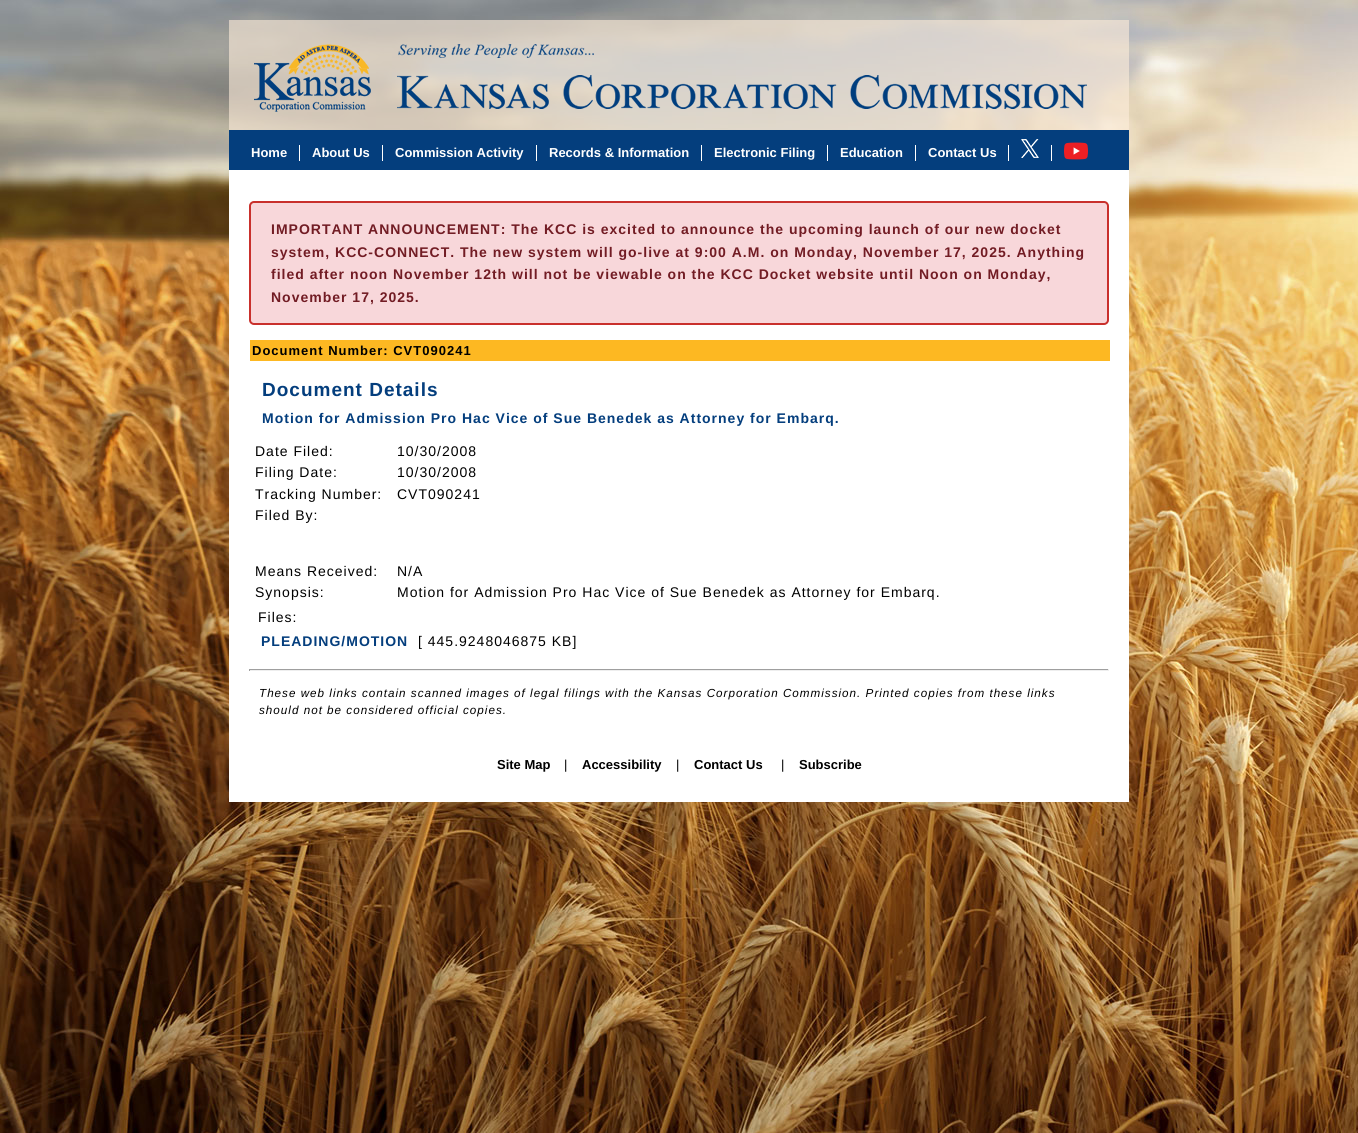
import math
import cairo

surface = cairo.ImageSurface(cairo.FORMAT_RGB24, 1358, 1133)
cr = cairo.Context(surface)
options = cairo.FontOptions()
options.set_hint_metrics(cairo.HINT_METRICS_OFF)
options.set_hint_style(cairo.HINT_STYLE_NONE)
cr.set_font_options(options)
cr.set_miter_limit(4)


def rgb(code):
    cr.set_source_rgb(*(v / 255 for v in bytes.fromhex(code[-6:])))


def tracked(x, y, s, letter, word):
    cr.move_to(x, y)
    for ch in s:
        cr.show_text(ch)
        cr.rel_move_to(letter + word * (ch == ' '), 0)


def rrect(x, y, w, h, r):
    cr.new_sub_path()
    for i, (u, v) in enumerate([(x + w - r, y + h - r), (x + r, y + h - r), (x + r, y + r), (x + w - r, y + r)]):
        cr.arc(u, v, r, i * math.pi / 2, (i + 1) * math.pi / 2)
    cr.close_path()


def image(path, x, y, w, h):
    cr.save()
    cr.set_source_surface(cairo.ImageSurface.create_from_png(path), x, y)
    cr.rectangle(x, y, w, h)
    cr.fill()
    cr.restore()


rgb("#ffffff")
cr.paint()
image("img/1.png", 0, 0, 1358, 1133)
image("img/2.png", 229, 20, 900, 110)
image("img/3.png", 254, 44, 117, 68)
for x, y, w, h, color in [
    (229, 170, 900, 632, "#ffffff"),
    (229, 130, 900, 40, "#043e7d"),
    (299, 145, 1, 16, "#ffffff"),
    (382, 145, 1, 16, "#ffffff"),
    (536, 145, 1, 16, "#ffffff"),
    (701, 145, 1, 16, "#ffffff"),
    (827, 145, 1, 16, "#ffffff"),
    (915, 145, 1, 16, "#ffffff"),
    (1008, 145, 1, 16, "#ffffff"),
]:
    rgb(color)
    cr.rectangle(x, y, w, h)
    cr.fill()
image("img/4.png", 1021, 139, 18, 19)
cr.rectangle(1051, 145, 1, 16)
cr.fill()
image("img/5.png", 1064, 142, 24, 18)
rgb("#f8d7da")
rrect(250, 202, 858, 122, 4)
cr.fill_preserve()
rgb("#c9302c")
cr.stroke()
for x, y, w, h, color in [
    (250, 340, 860, 21, "#fdb822"),
    (249, 669, 860, 1, "#9f9f9f"),
    (1108, 669, 1, 2, "#eeeeee"),
    (249, 670, 860, 1, "#eeeeee"),
    (249, 669, 1, 2, "#9f9f9f"),
]:
    rgb(color)
    cr.rectangle(x, y, w, h)
    cr.fill()
cr.select_font_face("Liberation Sans", cairo.FONT_SLANT_NORMAL, cairo.FONT_WEIGHT_BOLD)
cr.set_font_size(13)
rgb("#ffffff")
for x, y, s in [
    (251, 157, "Home"),
    (312, 157, "About Us"),
    (395, 157, "Commission Activity"),
    (549, 157, "Records & Information"),
    (714, 157, "Electronic Filing"),
    (840, 157, "Education"),
    (928, 157, "Contact Us"),
]:
    cr.move_to(x, y)
    cr.show_text(s)
cr.set_font_size(14)
rgb("#721c24")
for x, y, s in [
    (271, 234, "IMPORTANT ANNOUNCEMENT: The KCC is excited to announce the upcoming launch of our new docket"),
    (271, 257, "system, KCC-CONNECT. The new system will go-live at 9:00 A.M. on Monday, November 17, 2025. Anything"),
    (271, 279, "filed after noon November 12th will not be viewable on the KCC Docket website until Noon on Monday,"),
    (271, 302, "November 17, 2025."),
]:
    tracked(x, y, s, 1, 0)
cr.set_font_size(13)
rgb("#000000")
tracked(252, 355, "Document Number: CVT090241", 1, 0)
cr.set_font_size(19)
rgb("#043e7d")
tracked(262, 396, "Document Details", 1, 0)
cr.set_font_size(14)
tracked(262, 423, "Motion for Admission Pro Hac Vice of Sue Benedek as Attorney for Embarq.", 1, 0)
cr.select_font_face("Liberation Sans")
rgb("#000000")
for x, y, s in [
    (255, 456, "Date Filed:"),
    (397, 456, "10/30/2008"),
    (255, 477, "Filing Date:"),
    (397, 477, "10/30/2008"),
    (255, 499, "Tracking Number:"),
    (397, 499, "CVT090241"),
    (255, 520, "Filed By:"),
    (255, 576, "Means Received:"),
    (397, 576, "N/A"),
    (255, 597, "Synopsis:"),
    (397, 597, "Motion for Admission Pro Hac Vice of Sue Benedek as Attorney for Embarq."),
    (258, 622, "Files:"),
]:
    tracked(x, y, s, 1, 0)
cr.select_font_face("Liberation Sans", cairo.FONT_SLANT_NORMAL, cairo.FONT_WEIGHT_BOLD)
rgb("#043e7d")
tracked(261, 646, "PLEADING/MOTION", 1, 0)
cr.select_font_face("Liberation Sans")
rgb("#000000")
tracked(418, 646, "[ 445.9248046875 KB]", 1, 0)
cr.select_font_face("Liberation Sans", cairo.FONT_SLANT_ITALIC)
cr.set_font_size(11.67)
tracked(259, 697, "These web links contain scanned images of legal filings with the Kansas Corporation Commission. Printed copies from these links", 1, 0)
tracked(259, 714, "should not be considered official copies.", 1, 0)
cr.select_font_face("Liberation Sans", cairo.FONT_SLANT_NORMAL, cairo.FONT_WEIGHT_BOLD)
cr.set_font_size(13)
cr.move_to(497, 769)
cr.show_text("Site Map")
cr.select_font_face("Liberation Sans")
cr.move_to(564, 769)
cr.show_text("|")
cr.select_font_face("Liberation Sans", cairo.FONT_SLANT_NORMAL, cairo.FONT_WEIGHT_BOLD)
cr.move_to(582, 769)
cr.show_text("Accessibility")
cr.select_font_face("Liberation Sans")
cr.move_to(676, 769)
cr.show_text("|")
cr.select_font_face("Liberation Sans", cairo.FONT_SLANT_NORMAL, cairo.FONT_WEIGHT_BOLD)
cr.move_to(694, 769)
cr.show_text("Contact Us")
cr.select_font_face("Liberation Sans")
cr.move_to(781, 769)
cr.show_text("|")
cr.select_font_face("Liberation Sans", cairo.FONT_SLANT_NORMAL, cairo.FONT_WEIGHT_BOLD)
cr.move_to(799, 769)
cr.show_text("Subscribe")
surface.write_to_png("page.png")
